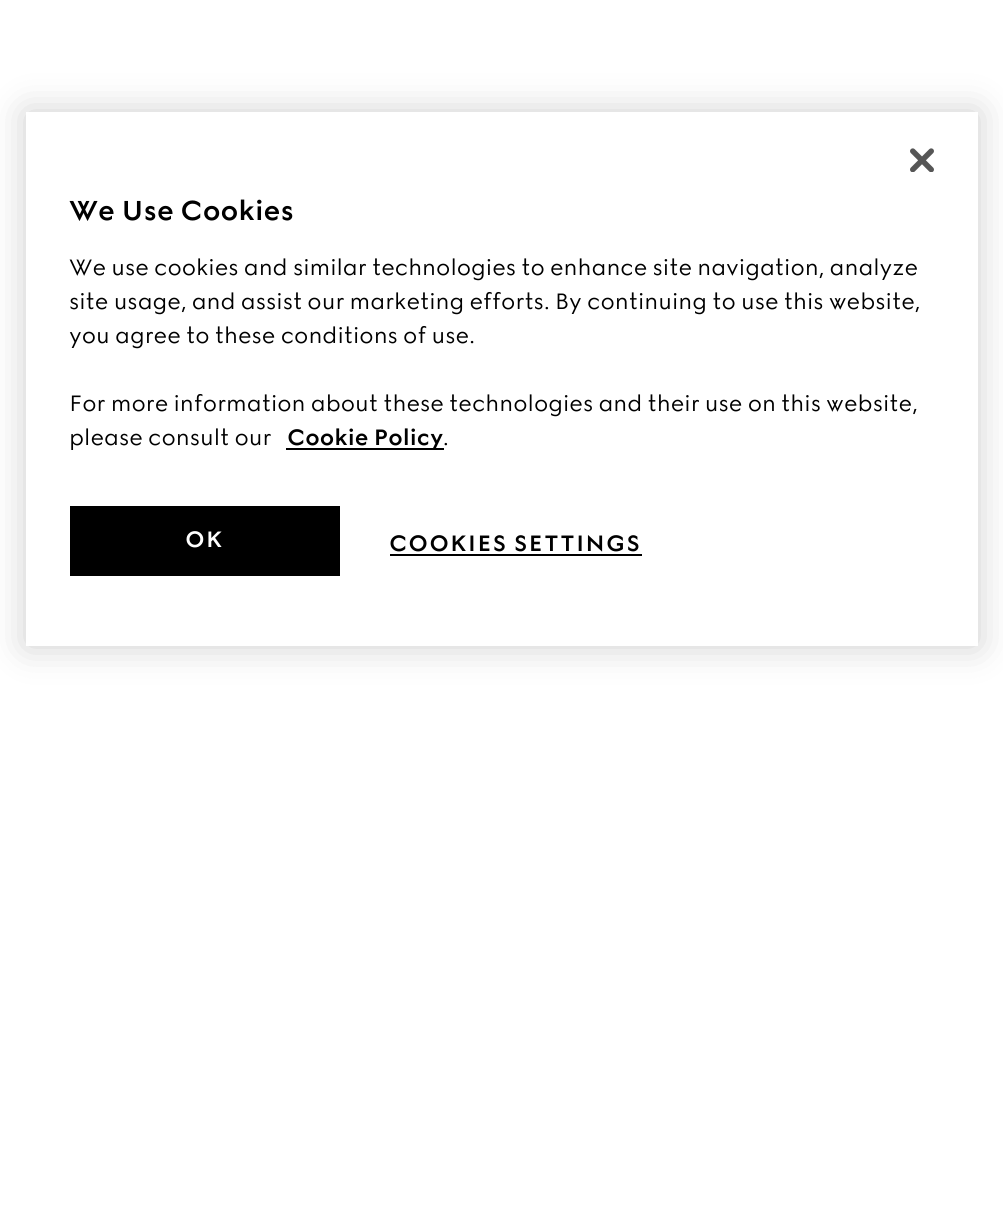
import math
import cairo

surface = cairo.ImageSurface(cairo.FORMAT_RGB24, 1003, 1207)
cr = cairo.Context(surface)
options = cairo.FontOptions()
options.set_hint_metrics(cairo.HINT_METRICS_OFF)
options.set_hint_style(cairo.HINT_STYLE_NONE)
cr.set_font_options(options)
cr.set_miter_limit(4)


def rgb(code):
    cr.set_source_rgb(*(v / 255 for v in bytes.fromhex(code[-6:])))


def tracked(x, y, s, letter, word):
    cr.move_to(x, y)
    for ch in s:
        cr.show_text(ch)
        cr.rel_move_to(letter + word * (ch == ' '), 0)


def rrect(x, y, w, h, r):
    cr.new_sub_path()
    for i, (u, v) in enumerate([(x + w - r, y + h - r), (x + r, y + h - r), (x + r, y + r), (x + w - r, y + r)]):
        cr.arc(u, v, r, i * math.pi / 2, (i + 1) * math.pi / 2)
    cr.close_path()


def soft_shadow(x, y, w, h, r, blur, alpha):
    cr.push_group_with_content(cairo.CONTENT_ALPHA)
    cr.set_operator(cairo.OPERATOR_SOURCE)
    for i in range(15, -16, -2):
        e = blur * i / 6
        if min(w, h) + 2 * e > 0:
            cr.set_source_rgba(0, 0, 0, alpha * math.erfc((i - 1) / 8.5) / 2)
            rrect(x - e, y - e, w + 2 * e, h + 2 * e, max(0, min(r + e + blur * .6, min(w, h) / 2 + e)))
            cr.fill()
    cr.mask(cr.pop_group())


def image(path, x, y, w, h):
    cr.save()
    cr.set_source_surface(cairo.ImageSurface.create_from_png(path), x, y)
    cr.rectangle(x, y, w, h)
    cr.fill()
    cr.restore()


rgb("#ffffff")
cr.paint()
rgb("#000000")
soft_shadow(26, 112, 952, 534, 0, 18, 0.2)
rgb("#ffffff")
cr.rectangle(26, 112, 952, 534)
cr.fill()
image("img/1.png", 910, 148, 24, 24)
for x, y, w, h, color in [
    (286, 448, 158, 2, "#000000"),
    (70, 506, 270, 70, "#000000"),
    (390, 554, 252, 2, "#000000"),
]:
    rgb(color)
    cr.rectangle(x, y, w, h)
    cr.fill()
cr.select_font_face("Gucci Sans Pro", cairo.FONT_SLANT_NORMAL, cairo.FONT_WEIGHT_BOLD)
cr.set_font_size(28)
cr.move_to(69, 220)
cr.show_text("We Use Cookies")
cr.select_font_face("Gucci Sans Pro")
cr.set_font_size(22.75)
for x, y, s in [
    (69, 275, "We use cookies and similar technologies to enhance site navigation, analyze"),
    (69, 309, "site usage, and assist our marketing efforts. By continuing to use this website,"),
    (69, 343, "you agree to these conditions of use."),
    (69, 411, "For more information about these technologies and their use on this website,"),
    (69, 445, "please consult our"),
]:
    cr.move_to(x, y)
    cr.show_text(s)
cr.select_font_face("Gucci Sans Pro", cairo.FONT_SLANT_NORMAL, cairo.FONT_WEIGHT_BOLD)
cr.move_to(287, 445)
cr.show_text("Cookie Policy")
cr.select_font_face("Gucci Sans Pro")
cr.move_to(443, 445)
cr.show_text(".")
cr.select_font_face("Gucci Sans Pro", cairo.FONT_SLANT_NORMAL, cairo.FONT_WEIGHT_BOLD)
rgb("#ffffff")
tracked(185, 547, "OK", 1.1, 0)
rgb("#000000")
tracked(389, 551, "COOKIES SETTINGS", 1.1, 0)
surface.write_to_png("page.png")
